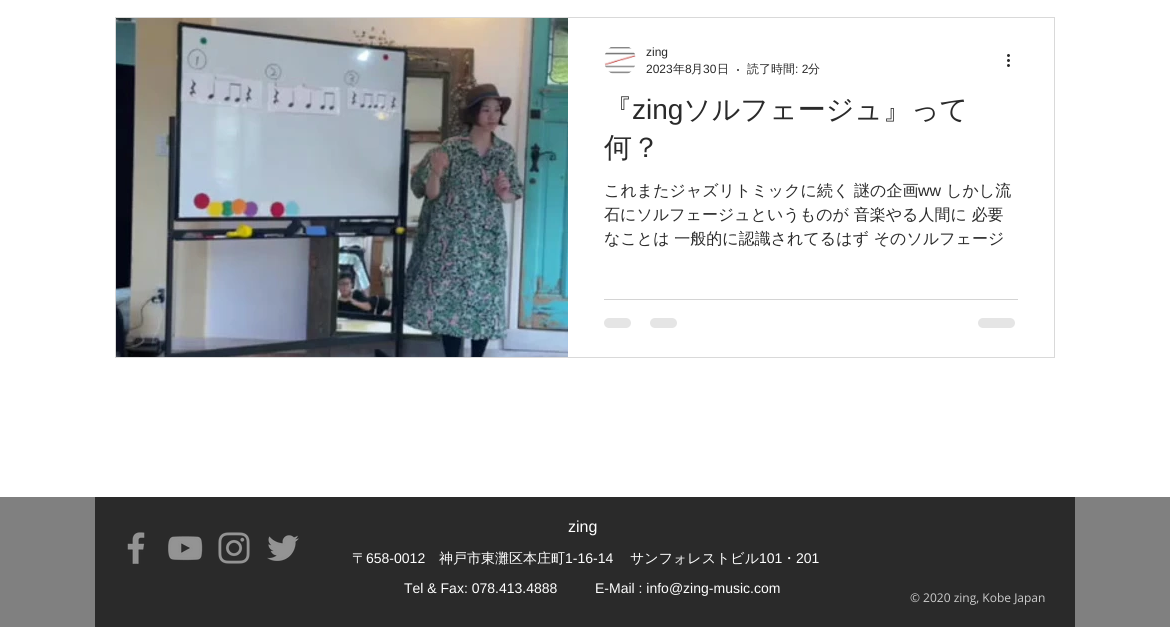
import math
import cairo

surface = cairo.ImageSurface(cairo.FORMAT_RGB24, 1170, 627)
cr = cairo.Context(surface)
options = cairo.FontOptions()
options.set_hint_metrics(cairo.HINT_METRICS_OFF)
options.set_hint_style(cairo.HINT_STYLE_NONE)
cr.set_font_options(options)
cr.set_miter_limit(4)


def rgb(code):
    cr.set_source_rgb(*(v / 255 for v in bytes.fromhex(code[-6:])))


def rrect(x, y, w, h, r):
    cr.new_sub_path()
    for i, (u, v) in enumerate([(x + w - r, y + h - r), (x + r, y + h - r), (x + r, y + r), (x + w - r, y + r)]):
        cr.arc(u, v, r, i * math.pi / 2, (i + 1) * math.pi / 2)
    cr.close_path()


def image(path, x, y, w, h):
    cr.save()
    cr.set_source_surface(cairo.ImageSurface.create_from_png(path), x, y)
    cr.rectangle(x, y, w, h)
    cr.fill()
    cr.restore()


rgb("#ffffff")
cr.paint()
cr.rectangle(115.5, 17.5, 939, 340)
rgb("#d9d9d9")
cr.set_line_width(1)
cr.stroke()
image("img/1.png", 116, 18, 452, 339)
image("img/2.png", 604, 47, 32, 27)
rgb("#2a2a2a")
cr.arc(738, 70, 1, 0, 2 * math.pi)
cr.fill()
image("img/3.png", 1007, 54, 3, 13)
rgb("#d4d4d4")
cr.rectangle(604, 299, 414, 1)
cr.fill()
rgb("#e5e5e5")
rrect(604, 318, 27, 10, 5)
cr.fill()
rrect(650, 318, 27, 10, 5)
cr.fill()
rrect(978, 318, 37, 10, 5)
cr.fill()
rgb("#808080")
cr.rectangle(0, 497, 1170, 130)
cr.fill()
rgb("#2a2a2a")
cr.rectangle(95, 497, 980, 130)
cr.fill()
image("img/4.png", 127, 532, 18, 32)
image("img/5.png", 168, 536, 35, 25)
image("img/6.png", 218, 532, 32, 32)
image("img/7.png", 267, 535, 32, 26)
cr.select_font_face("Liberation Sans")
cr.set_font_size(12)
cr.move_to(646, 56)
cr.show_text("zing")
cr.move_to(646, 73)
cr.show_text("2023")
cr.select_font_face("WenQuanYi Zen Hei Medium")
cr.move_to(673, 73)
cr.show_text("年")
cr.select_font_face("Liberation Sans")
cr.move_to(685, 73)
cr.show_text("8")
cr.select_font_face("WenQuanYi Zen Hei Medium")
cr.move_to(691, 73)
cr.show_text("月")
cr.select_font_face("Liberation Sans")
cr.move_to(703, 73)
cr.show_text("30")
cr.select_font_face("WenQuanYi Zen Hei Medium")
cr.move_to(717, 73)
cr.show_text("日")
cr.move_to(747, 73)
cr.show_text("読了時間")
cr.select_font_face("Liberation Sans")
cr.move_to(795, 73)
cr.show_text(": 2")
cr.select_font_face("WenQuanYi Zen Hei Medium")
cr.move_to(808, 73)
cr.show_text("分")
cr.set_font_size(28)
cr.move_to(604, 119)
cr.show_text("『")
cr.select_font_face("Liberation Sans")
cr.move_to(632, 119)
cr.show_text("zing")
cr.select_font_face("WenQuanYi Zen Hei Medium")
cr.move_to(683, 119)
cr.show_text("ソルフェージュ』って")
cr.move_to(604, 157)
cr.show_text("何？")
cr.set_font_size(16)
cr.move_to(604, 196)
cr.show_text("これまたジャズリトミックに続く 謎の企画")
cr.select_font_face("Liberation Sans")
cr.move_to(918, 196)
cr.show_text("ww")
cr.select_font_face("WenQuanYi Zen Hei Medium")
for x, y, s in [
    (946, 196, "しかし流"),
    (604, 220, "石にソルフェージュというものが 音楽やる人間に 必要"),
    (604, 244, "なことは 一般的に認識されてるはず そのソルフェージ"),
]:
    cr.move_to(x, y)
    cr.show_text(s)
cr.select_font_face("Liberation Sans")
rgb("#ffffff")
cr.move_to(568, 532)
cr.show_text("zing")
cr.select_font_face("WenQuanYi Zen Hei Medium")
cr.set_font_size(14)
cr.move_to(352, 563)
cr.show_text("〒")
cr.select_font_face("Liberation Sans")
cr.move_to(366, 563)
cr.show_text("658-0012")
cr.select_font_face("WenQuanYi Zen Hei Medium")
cr.move_to(439, 563)
cr.show_text("神戸市東灘区本庄町")
cr.select_font_face("Liberation Sans")
cr.move_to(565, 563)
cr.show_text("1-16-14")
cr.select_font_face("WenQuanYi Zen Hei Medium")
cr.move_to(630, 563)
cr.show_text("サンフォレストビル")
cr.select_font_face("Liberation Sans")
cr.move_to(759, 563)
cr.show_text("101")
cr.select_font_face("WenQuanYi Zen Hei Medium")
cr.move_to(782, 563)
cr.show_text("・")
cr.select_font_face("Liberation Sans")
for x, y, s in [
    (796, 563, "201"),
    (404, 593, "Tel & Fax: 078.413.4888"),
    (595, 593, "E-Mail : info@zing-music.com"),
]:
    cr.move_to(x, y)
    cr.show_text(s)
cr.select_font_face("Open Sans")
cr.set_font_size(12)
rgb("#cccccc")
cr.move_to(910, 602)
cr.show_text("© 2020 zing, Kobe Japan")
surface.write_to_png("page.png")
